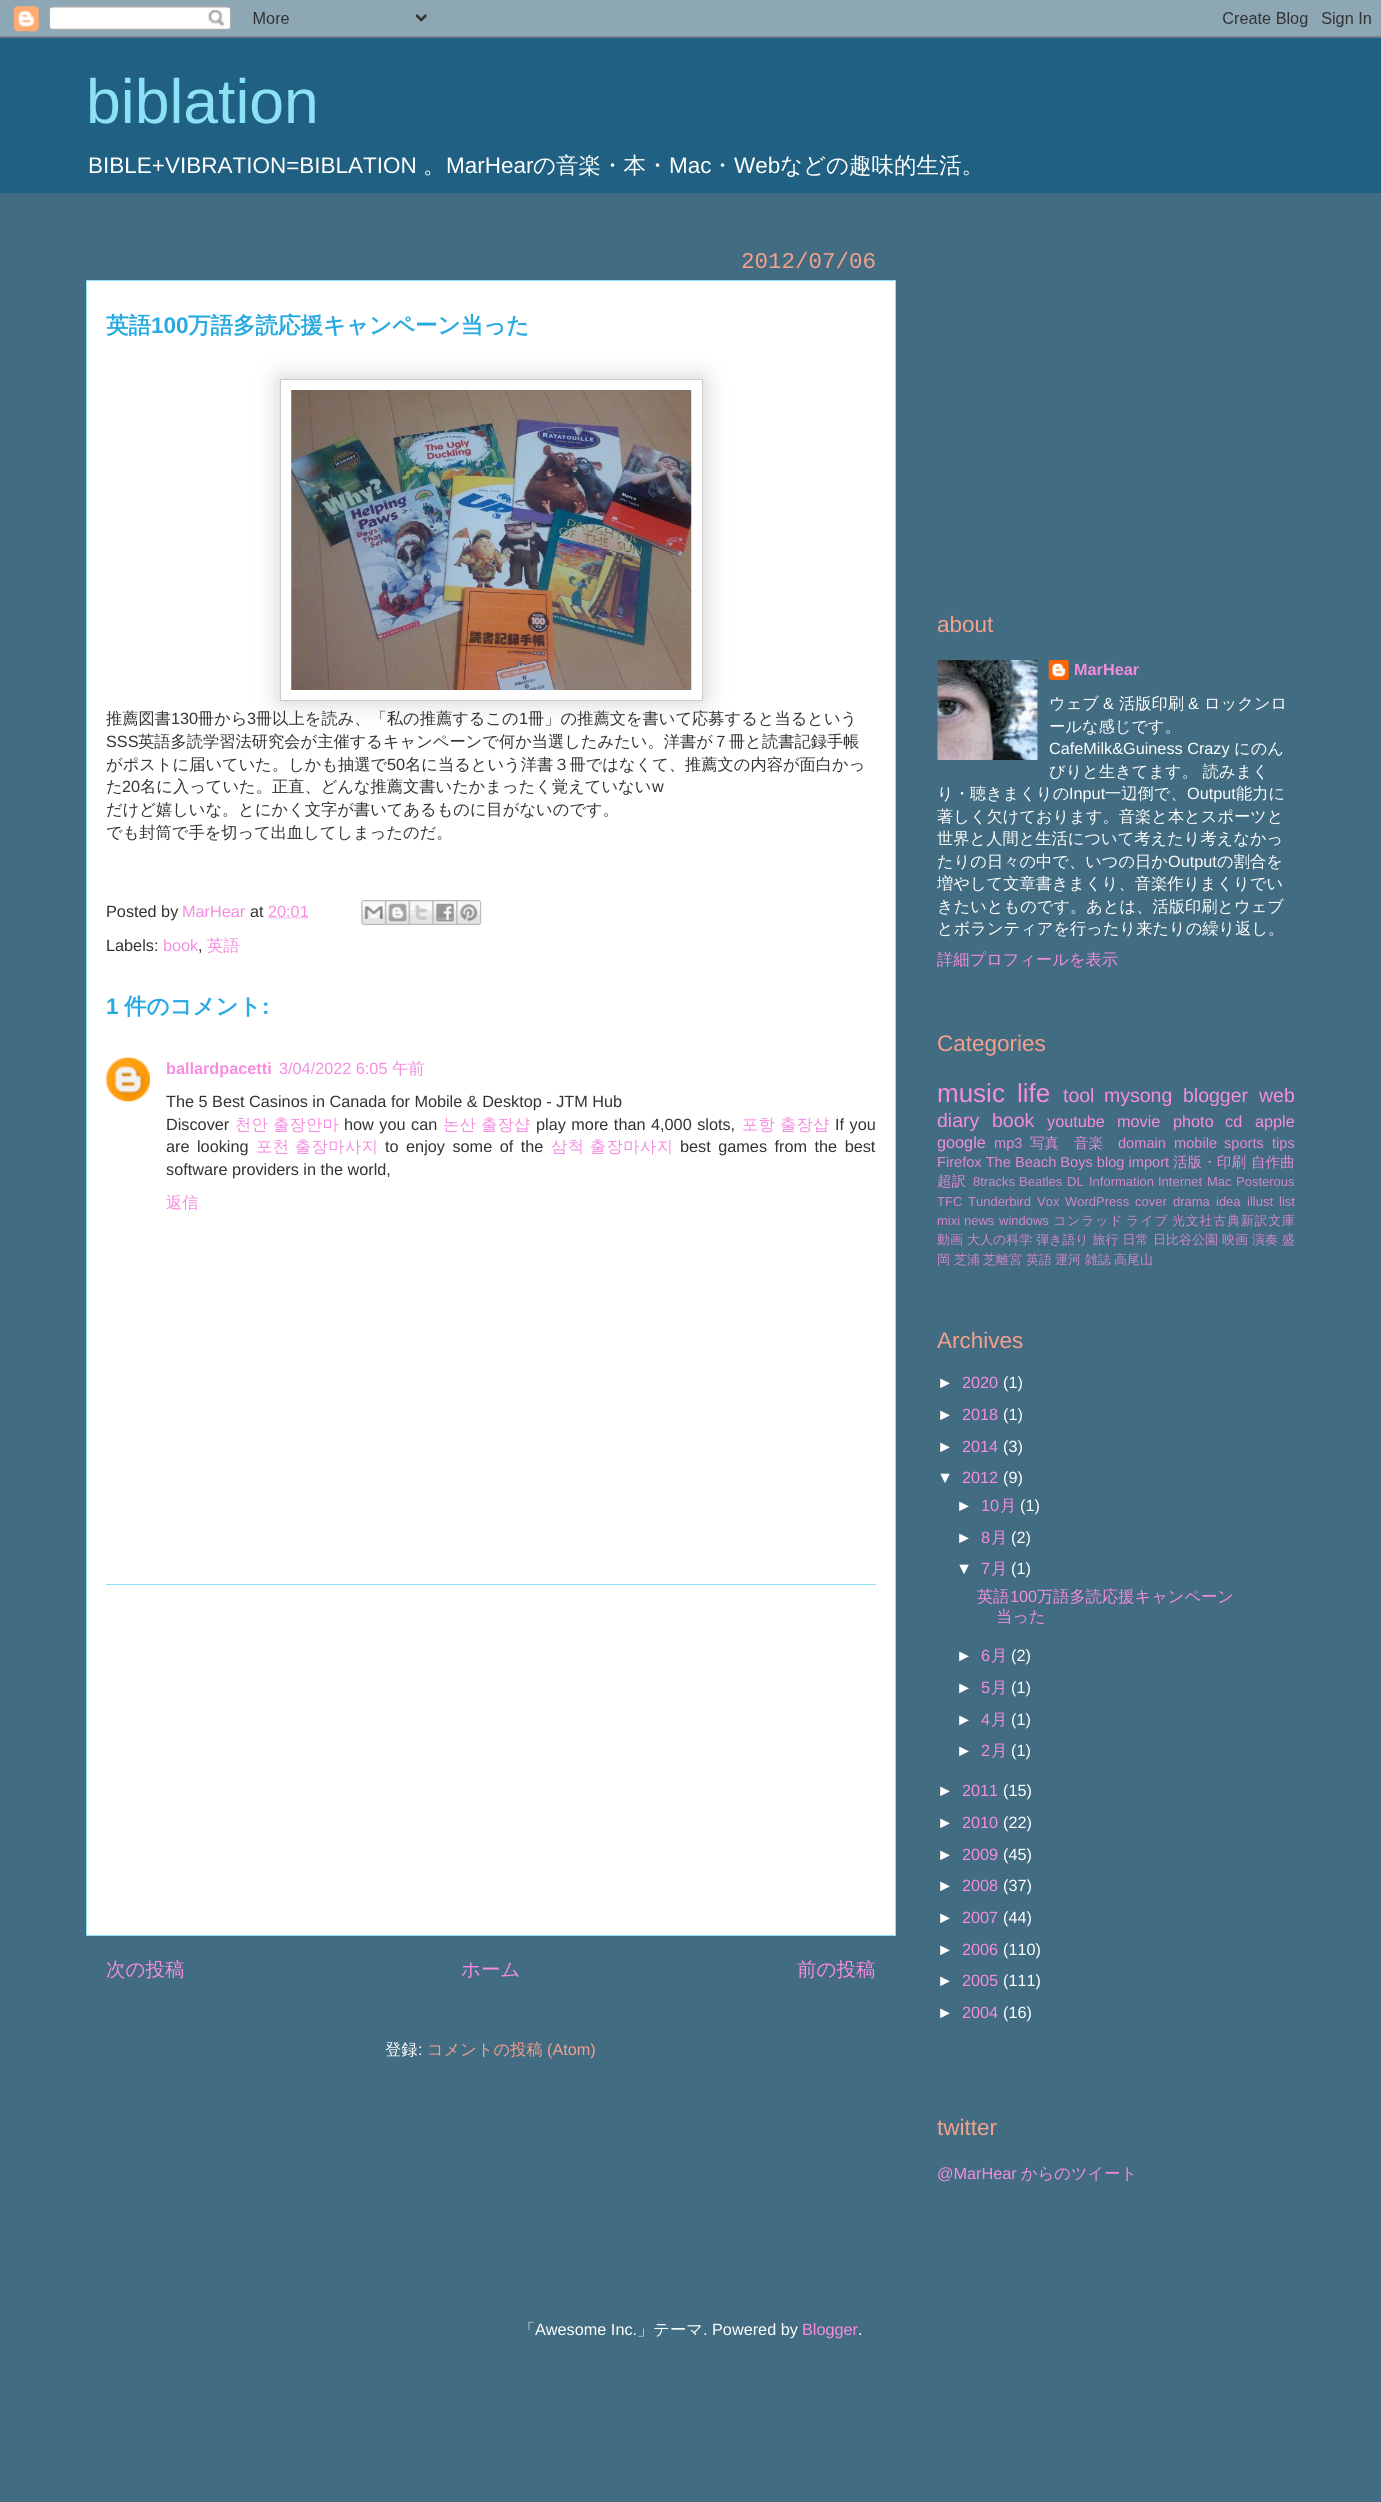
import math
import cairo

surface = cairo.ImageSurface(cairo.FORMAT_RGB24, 1381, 2502)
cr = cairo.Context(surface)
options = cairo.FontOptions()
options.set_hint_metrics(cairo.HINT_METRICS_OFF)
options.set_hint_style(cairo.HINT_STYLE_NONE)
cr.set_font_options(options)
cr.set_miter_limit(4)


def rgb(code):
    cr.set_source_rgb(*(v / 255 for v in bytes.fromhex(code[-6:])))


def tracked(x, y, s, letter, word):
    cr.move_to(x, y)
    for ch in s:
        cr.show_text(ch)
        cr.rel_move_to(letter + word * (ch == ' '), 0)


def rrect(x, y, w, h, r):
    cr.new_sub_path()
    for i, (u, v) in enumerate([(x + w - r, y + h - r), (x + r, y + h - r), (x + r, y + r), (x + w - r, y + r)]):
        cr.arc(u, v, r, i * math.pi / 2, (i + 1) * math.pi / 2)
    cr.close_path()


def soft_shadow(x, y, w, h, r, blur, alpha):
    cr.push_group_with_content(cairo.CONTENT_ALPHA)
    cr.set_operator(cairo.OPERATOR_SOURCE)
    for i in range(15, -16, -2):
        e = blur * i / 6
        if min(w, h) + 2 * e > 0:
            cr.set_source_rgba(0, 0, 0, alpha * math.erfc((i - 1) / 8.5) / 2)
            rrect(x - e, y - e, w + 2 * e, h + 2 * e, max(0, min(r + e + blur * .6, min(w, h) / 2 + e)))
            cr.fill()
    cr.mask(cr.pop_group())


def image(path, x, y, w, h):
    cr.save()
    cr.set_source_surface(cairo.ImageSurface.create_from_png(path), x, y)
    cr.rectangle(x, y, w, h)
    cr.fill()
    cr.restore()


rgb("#416c82")
cr.paint()
image("img/1.png", 0, 0, 1381, 38)
rgb("#206082")
cr.rectangle(0, 38, 1381, 155)
cr.fill()
rgb("#ffffff")
cr.rectangle(86.5, 280.5, 809, 1655)
cr.fill_preserve()
rgb("#8ce1f5")
cr.set_line_width(1)
cr.stroke()
rgb("#000000")
soft_shadow(280, 379, 423, 322, 0, 12.5, 0.2)
rgb("#ffffff")
cr.rectangle(280.5, 379.5, 422, 321)
cr.fill_preserve()
rgb("#cccccc")
cr.stroke()
image("img/2.png", 291, 390, 401, 300)
cr.new_path()
cr.move_to(268.5, 918)
cr.line_to(309, 918)
rgb("#f58ce0")
cr.set_line_width(1.2)
cr.set_dash([1.25, 1.25])
cr.stroke()
image("img/3.png", 361, 900, 24, 25)
image("img/4.png", 385, 900, 24, 25)
image("img/5.png", 408, 900, 25, 25)
image("img/6.png", 432, 900, 25, 25)
image("img/7.png", 456, 900, 26, 25)
image("img/8.png", 106, 1057, 44, 45)
rgb("#8ce1f5")
cr.rectangle(106, 1584, 770, 1)
cr.fill()
image("img/9.png", 937, 660, 101, 100)
image("img/10.png", 1048, 660, 21, 20)
cr.select_font_face("Liberation Sans")
cr.set_font_size(62.5)
cr.move_to(86, 123)
cr.show_text("biblation")
cr.set_font_size(22.5)
rgb("#ffffff")
cr.move_to(88, 173)
cr.show_text("BIBLE+VIBRATION=BIBLATION")
cr.move_to(446, 173)
cr.show_text("MarHear")
cr.select_font_face("WenQuanYi Zen Hei Medium")
cr.move_to(533, 173)
cr.show_text("の音楽・本・")
cr.select_font_face("Liberation Sans")
cr.move_to(669, 173)
cr.show_text("Mac")
cr.select_font_face("WenQuanYi Zen Hei Medium")
cr.move_to(711, 173)
cr.show_text("・")
cr.select_font_face("Liberation Sans")
cr.move_to(734, 173)
cr.show_text("Web")
cr.select_font_face("WenQuanYi Zen Hei Medium")
cr.move_to(780, 173)
cr.show_text("などの趣味的生活。")
cr.move_to(423, 173)
cr.show_text("。")
cr.select_font_face("Liberation Mono")
rgb("#f5a08c")
cr.move_to(741, 268)
cr.show_text("2012/07/06")
cr.select_font_face("WenQuanYi Zen Hei", cairo.FONT_SLANT_NORMAL, cairo.FONT_WEIGHT_BOLD)
rgb("#29aae1")
cr.move_to(106, 333)
cr.show_text("英語")
cr.select_font_face("Liberation Sans", cairo.FONT_SLANT_NORMAL, cairo.FONT_WEIGHT_BOLD)
cr.move_to(151, 333)
cr.show_text("100")
cr.select_font_face("WenQuanYi Zen Hei", cairo.FONT_SLANT_NORMAL, cairo.FONT_WEIGHT_BOLD)
cr.move_to(188, 333)
cr.show_text("万語多読応援キャンペーン当った")
cr.select_font_face("WenQuanYi Zen Hei Medium")
cr.set_font_size(16.25)
rgb("#333333")
cr.move_to(106, 724)
cr.show_text("推薦図書")
cr.select_font_face("Liberation Sans")
cr.move_to(171, 724)
cr.show_text("130")
cr.select_font_face("WenQuanYi Zen Hei Medium")
cr.move_to(198, 724)
cr.show_text("冊から")
cr.select_font_face("Liberation Sans")
cr.move_to(247, 724)
cr.show_text("3")
cr.select_font_face("WenQuanYi Zen Hei Medium")
cr.move_to(256, 724)
cr.show_text("冊以上を読み、「私の推薦するこの")
cr.select_font_face("Liberation Sans")
cr.move_to(519, 724)
cr.show_text("1")
cr.select_font_face("WenQuanYi Zen Hei Medium")
cr.move_to(528, 724)
cr.show_text("冊」の推薦文を書いて応募すると当るという")
cr.select_font_face("Liberation Sans")
cr.move_to(106, 747)
cr.show_text("SSS")
cr.select_font_face("WenQuanYi Zen Hei Medium")
cr.move_to(138, 747)
cr.show_text("英語多読学習法研究会が主催するキャンペーンで何か当選したみたい。洋書が７冊と読書記録手帳")
cr.move_to(106, 770)
cr.show_text("がポストに届いていた。しかも抽選で")
cr.select_font_face("Liberation Sans")
cr.move_to(387, 770)
cr.show_text("50")
cr.select_font_face("WenQuanYi Zen Hei Medium")
cr.move_to(405, 770)
cr.show_text("名に当るという洋書３冊ではなくて、推薦文の内容が面白かっ")
cr.move_to(106, 792)
cr.show_text("た")
cr.select_font_face("Liberation Sans")
cr.move_to(122, 792)
cr.show_text("20")
cr.select_font_face("WenQuanYi Zen Hei Medium")
cr.move_to(140, 792)
cr.show_text("名に入っていた。正直、どんな推薦文書いたかまったく覚えていない")
cr.select_font_face("Liberation Sans")
cr.move_to(652, 792)
cr.show_text("w")
cr.select_font_face("WenQuanYi Zen Hei Medium")
cr.move_to(106, 815)
cr.show_text("だけど嬉しいな。とにかく文字が書いてあるものに目がないのです。")
cr.move_to(106, 838)
cr.show_text("でも封筒で手を切って出血してしまったのだ。")
cr.select_font_face("Liberation Sans")
cr.move_to(106, 917)
cr.show_text("Posted by")
rgb("#f58ce0")
cr.move_to(182, 917)
cr.show_text("MarHear")
rgb("#333333")
cr.move_to(250, 917)
cr.show_text("at")
rgb("#f58ce0")
cr.move_to(268, 917)
cr.show_text("20:01")
rgb("#333333")
cr.move_to(106, 951)
cr.show_text("Labels:")
rgb("#f58ce0")
cr.move_to(163, 951)
cr.show_text("book")
rgb("#333333")
cr.move_to(198, 951)
cr.show_text(",")
cr.select_font_face("WenQuanYi Zen Hei Medium")
rgb("#f58ce0")
cr.move_to(207, 951)
cr.show_text("英語")
cr.select_font_face("Liberation Sans", cairo.FONT_SLANT_NORMAL, cairo.FONT_WEIGHT_BOLD)
cr.set_font_size(22.5)
rgb("#29aae1")
cr.move_to(106, 1014)
cr.show_text("1")
cr.select_font_face("WenQuanYi Zen Hei", cairo.FONT_SLANT_NORMAL, cairo.FONT_WEIGHT_BOLD)
cr.move_to(124, 1014)
cr.show_text("件のコメント")
cr.select_font_face("Liberation Sans", cairo.FONT_SLANT_NORMAL, cairo.FONT_WEIGHT_BOLD)
cr.move_to(262, 1014)
cr.show_text(":")
cr.set_font_size(16.25)
rgb("#f58ce0")
cr.move_to(166, 1074)
cr.show_text("ballardpacetti")
cr.select_font_face("Liberation Sans")
cr.move_to(279, 1074)
cr.show_text("3/04/2022 6:05")
cr.select_font_face("WenQuanYi Zen Hei Medium")
cr.move_to(392, 1074)
cr.show_text("午前")
cr.select_font_face("Liberation Sans")
rgb("#333333")
cr.move_to(166, 1107)
cr.show_text("The 5 Best Casinos in Canada for Mobile & Desktop - JTM Hub")
cr.move_to(166, 1130)
cr.show_text("Discover")
cr.select_font_face("WenQuanYi Zen Hei Medium")
rgb("#f58ce0")
tracked(235, 1130, "천안 출장안마", 0.25, 0)
cr.select_font_face("Liberation Sans")
rgb("#333333")
tracked(344, 1130, "how you can", 0, 1)
cr.select_font_face("WenQuanYi Zen Hei Medium")
rgb("#f58ce0")
tracked(443, 1130, "논산 출장샵", 0.25, 0)
cr.select_font_face("Liberation Sans")
rgb("#333333")
tracked(536, 1130, "play more than 4,000 slots,", 0, 1)
cr.select_font_face("WenQuanYi Zen Hei Medium")
rgb("#f58ce0")
tracked(742, 1130, "포항 출장샵", 0.25, 0)
cr.select_font_face("Liberation Sans")
rgb("#333333")
tracked(835, 1130, "If you", 0, 1)
tracked(166, 1152, "are looking", 0, 3)
cr.select_font_face("WenQuanYi Zen Hei Medium")
rgb("#f58ce0")
tracked(256, 1152, "포천 출장마사지", 0.5, 0)
cr.select_font_face("Liberation Sans")
rgb("#333333")
tracked(385, 1152, "to enjoy some of the", 0, 3)
cr.select_font_face("WenQuanYi Zen Hei Medium")
rgb("#f58ce0")
tracked(551, 1152, "삼척 출장마사지", 0.5, 0)
cr.select_font_face("Liberation Sans")
rgb("#333333")
tracked(680, 1152, "best games from the best", 0, 3)
cr.move_to(166, 1175)
cr.show_text("software providers in the world,")
cr.select_font_face("WenQuanYi Zen Hei Medium")
rgb("#f58ce0")
cr.move_to(166, 1208)
cr.show_text("返信")
cr.set_font_size(19.5)
for x, y, s in [
    (106, 1976, "次の投稿"),
    (461, 1976, "ホーム"),
    (797, 1976, "前の投稿"),
]:
    cr.move_to(x, y)
    cr.show_text(s)
cr.set_font_size(16.25)
rgb("#ffffff")
cr.move_to(385, 2055)
cr.show_text("登録")
cr.select_font_face("Liberation Sans")
cr.move_to(418, 2055)
cr.show_text(":")
cr.select_font_face("WenQuanYi Zen Hei Medium")
rgb("#f5a08c")
cr.move_to(427, 2055)
cr.show_text("コメントの投稿")
cr.select_font_face("Liberation Sans")
cr.move_to(547, 2055)
cr.show_text("(Atom)")
cr.set_font_size(22.5)
cr.move_to(937, 632)
cr.show_text("about")
cr.select_font_face("Liberation Sans", cairo.FONT_SLANT_NORMAL, cairo.FONT_WEIGHT_BOLD)
cr.set_font_size(16.25)
rgb("#f58ce0")
cr.move_to(1074, 675)
cr.show_text("MarHear")
cr.select_font_face("WenQuanYi Zen Hei Medium")
rgb("#ffffff")
cr.move_to(1049, 709)
cr.show_text("ウェブ")
cr.select_font_face("Liberation Sans")
cr.move_to(1103, 709)
cr.show_text("&")
cr.select_font_face("WenQuanYi Zen Hei Medium")
cr.move_to(1119, 709)
cr.show_text("活版印刷")
cr.select_font_face("Liberation Sans")
cr.move_to(1188, 709)
cr.show_text("&")
cr.select_font_face("WenQuanYi Zen Hei Medium")
cr.move_to(1204, 709)
cr.show_text("ロックンロ")
cr.move_to(1049, 732)
cr.show_text("ールな感じです。")
cr.select_font_face("Liberation Sans")
cr.move_to(1049, 754)
cr.show_text("CafeMilk&Guiness Crazy")
cr.select_font_face("WenQuanYi Zen Hei Medium")
for x, y, s in [
    (1234, 754, "にのん"),
    (1049, 777, "びりと生きてます。 読みまく"),
    (937, 799, "り・聴きまくりの"),
]:
    cr.move_to(x, y)
    cr.show_text(s)
cr.select_font_face("Liberation Sans")
cr.move_to(1069, 799)
cr.show_text("Input")
cr.select_font_face("WenQuanYi Zen Hei Medium")
cr.move_to(1105, 799)
cr.show_text("一辺倒で、")
cr.select_font_face("Liberation Sans")
cr.move_to(1187, 799)
cr.show_text("Output")
cr.select_font_face("WenQuanYi Zen Hei Medium")
for x, y, s in [
    (1236, 799, "能力に"),
    (937, 822, "著しく欠けております。音楽と本とスポーツと"),
    (937, 844, "世界と人間と生活について考えたり考えなかっ"),
    (937, 867, "たりの日々の中で、いつの日か"),
]:
    cr.move_to(x, y)
    cr.show_text(s)
cr.select_font_face("Liberation Sans")
cr.move_to(1168, 867)
cr.show_text("Output")
cr.select_font_face("WenQuanYi Zen Hei Medium")
for x, y, s in [
    (1217, 867, "の割合を"),
    (937, 889, "増やして文章書きまくり、音楽作りまくりでい"),
    (937, 912, "きたいとものです。あとは、活版印刷とウェブ"),
    (937, 934, "とボランティアを行ったり来たりの繰り返し。"),
]:
    cr.move_to(x, y)
    cr.show_text(s)
rgb("#f58ce0")
cr.move_to(937, 965)
cr.show_text("詳細プロフィールを表示")
cr.select_font_face("Liberation Sans")
cr.set_font_size(22.5)
rgb("#f5a08c")
cr.move_to(937, 1051)
cr.show_text("Categories")
cr.set_font_size(26)
rgb("#f58ce0")
cr.move_to(937, 1102)
cr.show_text("music")
cr.move_to(1017, 1102)
cr.show_text("life")
cr.set_font_size(19.5)
for x, y, s in [
    (1063, 1102, "tool"),
    (1104, 1102, "mysong"),
    (1183, 1102, "blogger"),
    (1259, 1102, "web"),
    (937, 1127, "diary"),
    (992, 1127, "book"),
]:
    cr.move_to(x, y)
    cr.show_text(s)
cr.set_font_size(16.25)
for x, y, s in [
    (1047, 1127, "youtube"),
    (1117, 1127, "movie"),
    (1173, 1127, "photo"),
    (1225, 1127, "cd"),
    (1255, 1127, "apple"),
    (937, 1148, "google"),
]:
    cr.move_to(x, y)
    cr.show_text(s)
cr.set_font_size(14.6)
rgb("#e389d7")
cr.move_to(994, 1148)
cr.show_text("mp3")
cr.select_font_face("WenQuanYi Zen Hei Medium")
cr.move_to(1030, 1148)
cr.show_text("写真")
cr.move_to(1074, 1148)
cr.show_text("音楽")
cr.select_font_face("Liberation Sans")
for x, y, s in [
    (1118, 1148, "domain"),
    (1174, 1148, "mobile"),
    (1224, 1148, "sports"),
    (1272, 1148, "tips"),
    (937, 1167, "Firefox The Beach Boys blog import"),
]:
    cr.move_to(x, y)
    cr.show_text(s)
cr.select_font_face("WenQuanYi Zen Hei Medium")
for x, y, s in [
    (1173, 1167, "活版・印刷"),
    (1251, 1167, "自作曲"),
    (937, 1186, "超訳"),
]:
    cr.move_to(x, y)
    cr.show_text(s)
cr.select_font_face("Liberation Sans")
cr.set_font_size(13)
rgb("#d186cd")
for x, y, s in [
    (973, 1186, "8tracks"),
    (1019, 1186, "Beatles"),
    (1067, 1186, "DL"),
    (1089, 1186, "Information"),
    (1158, 1186, "Internet"),
    (1207, 1186, "Mac"),
    (1236, 1186, "Posterous"),
    (937, 1206, "TFC"),
    (968, 1206, "Tunderbird"),
    (1037, 1206, "Vox"),
    (1065, 1206, "WordPress"),
    (1135, 1206, "cover"),
    (1173, 1206, "drama"),
    (1216, 1206, "idea"),
    (1247, 1206, "illust"),
    (1279, 1206, "list"),
    (937, 1225, "mixi"),
    (964, 1225, "news"),
    (999, 1225, "windows"),
]:
    cr.move_to(x, y)
    cr.show_text(s)
cr.select_font_face("WenQuanYi Zen Hei Medium")
tracked(1053, 1225, "コンラッド", 0.75, 0)
tracked(1126, 1225, "ライブ", 1, 0)
tracked(1172, 1225, "光文社古典新訳文庫", 0.75, 0)
for x, y, s in [
    (937, 1244, "動画"),
    (967, 1244, "大人の科学"),
    (1036, 1244, "弾き語り 旅行 日常"),
    (1153, 1244, "日比谷公園"),
    (1222, 1244, "映画 演奏 盛"),
    (937, 1264, "岡 芝浦"),
    (983, 1264, "芝離宮"),
    (1026, 1264, "英語"),
    (1055, 1264, "運河"),
    (1085, 1264, "雑誌"),
    (1114, 1264, "高尾山"),
]:
    cr.move_to(x, y)
    cr.show_text(s)
cr.select_font_face("Liberation Sans")
cr.set_font_size(22.5)
rgb("#f5a08c")
cr.move_to(937, 1348)
cr.show_text("Archives")
cr.set_font_size(16.25)
rgb("#ffffff")
cr.move_to(937, 1388)
cr.show_text("►")
rgb("#f58ce0")
cr.move_to(962, 1388)
cr.show_text("2020")
rgb("#ffffff")
cr.move_to(1003, 1388)
cr.show_text("(1)")
cr.move_to(937, 1420)
cr.show_text("►")
rgb("#f58ce0")
cr.move_to(962, 1420)
cr.show_text("2018")
rgb("#ffffff")
cr.move_to(1003, 1420)
cr.show_text("(1)")
cr.move_to(937, 1452)
cr.show_text("►")
rgb("#f58ce0")
cr.move_to(962, 1452)
cr.show_text("2014")
rgb("#ffffff")
cr.move_to(1003, 1452)
cr.show_text("(3)")
cr.move_to(937, 1483)
cr.show_text("▼")
rgb("#f58ce0")
cr.move_to(962, 1483)
cr.show_text("2012")
rgb("#ffffff")
cr.move_to(1003, 1483)
cr.show_text("(9)")
cr.move_to(956, 1511)
cr.show_text("►")
rgb("#f58ce0")
cr.move_to(981, 1511)
cr.show_text("10")
cr.select_font_face("WenQuanYi Zen Hei Medium")
cr.move_to(1000, 1511)
cr.show_text("月")
cr.select_font_face("Liberation Sans")
rgb("#ffffff")
cr.move_to(1020, 1511)
cr.show_text("(1)")
cr.move_to(956, 1543)
cr.show_text("►")
rgb("#f58ce0")
cr.move_to(981, 1543)
cr.show_text("8")
cr.select_font_face("WenQuanYi Zen Hei Medium")
cr.move_to(991, 1543)
cr.show_text("月")
cr.select_font_face("Liberation Sans")
rgb("#ffffff")
cr.move_to(1011, 1543)
cr.show_text("(2)")
cr.move_to(956, 1574)
cr.show_text("▼")
rgb("#f58ce0")
cr.move_to(981, 1574)
cr.show_text("7")
cr.select_font_face("WenQuanYi Zen Hei Medium")
cr.move_to(991, 1574)
cr.show_text("月")
cr.select_font_face("Liberation Sans")
rgb("#ffffff")
cr.move_to(1011, 1574)
cr.show_text("(1)")
cr.select_font_face("WenQuanYi Zen Hei Medium")
rgb("#f58ce0")
cr.move_to(977, 1602)
cr.show_text("英語")
cr.select_font_face("Liberation Sans")
cr.move_to(1010, 1602)
cr.show_text("100")
cr.select_font_face("WenQuanYi Zen Hei Medium")
cr.move_to(1037, 1602)
cr.show_text("万語多読応援キャンペーン")
cr.move_to(996, 1622)
cr.show_text("当った")
cr.select_font_face("Liberation Sans")
rgb("#ffffff")
cr.move_to(956, 1661)
cr.show_text("►")
rgb("#f58ce0")
cr.move_to(981, 1661)
cr.show_text("6")
cr.select_font_face("WenQuanYi Zen Hei Medium")
cr.move_to(991, 1661)
cr.show_text("月")
cr.select_font_face("Liberation Sans")
rgb("#ffffff")
cr.move_to(1011, 1661)
cr.show_text("(2)")
cr.move_to(956, 1693)
cr.show_text("►")
rgb("#f58ce0")
cr.move_to(981, 1693)
cr.show_text("5")
cr.select_font_face("WenQuanYi Zen Hei Medium")
cr.move_to(991, 1693)
cr.show_text("月")
cr.select_font_face("Liberation Sans")
rgb("#ffffff")
cr.move_to(1011, 1693)
cr.show_text("(1)")
cr.move_to(956, 1725)
cr.show_text("►")
rgb("#f58ce0")
cr.move_to(981, 1725)
cr.show_text("4")
cr.select_font_face("WenQuanYi Zen Hei Medium")
cr.move_to(991, 1725)
cr.show_text("月")
cr.select_font_face("Liberation Sans")
rgb("#ffffff")
cr.move_to(1011, 1725)
cr.show_text("(1)")
cr.move_to(956, 1756)
cr.show_text("►")
rgb("#f58ce0")
cr.move_to(981, 1756)
cr.show_text("2")
cr.select_font_face("WenQuanYi Zen Hei Medium")
cr.move_to(991, 1756)
cr.show_text("月")
cr.select_font_face("Liberation Sans")
rgb("#ffffff")
cr.move_to(1011, 1756)
cr.show_text("(1)")
cr.move_to(937, 1796)
cr.show_text("►")
rgb("#f58ce0")
cr.move_to(962, 1796)
cr.show_text("2011")
rgb("#ffffff")
cr.move_to(1003, 1796)
cr.show_text("(15)")
cr.move_to(937, 1828)
cr.show_text("►")
rgb("#f58ce0")
cr.move_to(962, 1828)
cr.show_text("2010")
rgb("#ffffff")
cr.move_to(1003, 1828)
cr.show_text("(22)")
cr.move_to(937, 1860)
cr.show_text("►")
rgb("#f58ce0")
cr.move_to(962, 1860)
cr.show_text("2009")
rgb("#ffffff")
cr.move_to(1003, 1860)
cr.show_text("(45)")
cr.move_to(937, 1891)
cr.show_text("►")
rgb("#f58ce0")
cr.move_to(962, 1891)
cr.show_text("2008")
rgb("#ffffff")
cr.move_to(1003, 1891)
cr.show_text("(37)")
cr.move_to(937, 1923)
cr.show_text("►")
rgb("#f58ce0")
cr.move_to(962, 1923)
cr.show_text("2007")
rgb("#ffffff")
cr.move_to(1003, 1923)
cr.show_text("(44)")
cr.move_to(937, 1955)
cr.show_text("►")
rgb("#f58ce0")
cr.move_to(962, 1955)
cr.show_text("2006")
rgb("#ffffff")
cr.move_to(1003, 1955)
cr.show_text("(110)")
cr.move_to(937, 1986)
cr.show_text("►")
rgb("#f58ce0")
cr.move_to(962, 1986)
cr.show_text("2005")
rgb("#ffffff")
cr.move_to(1003, 1986)
cr.show_text("(111)")
cr.move_to(937, 2018)
cr.show_text("►")
rgb("#f58ce0")
cr.move_to(962, 2018)
cr.show_text("2004")
rgb("#ffffff")
cr.move_to(1003, 2018)
cr.show_text("(16)")
cr.set_font_size(22.5)
rgb("#f5a08c")
cr.move_to(937, 2135)
cr.show_text("twitter")
cr.set_font_size(16.25)
rgb("#f58ce0")
cr.move_to(937, 2179)
cr.show_text("@MarHear")
cr.select_font_face("WenQuanYi Zen Hei Medium")
cr.move_to(1021, 2179)
cr.show_text("からのツイート")
rgb("#ffffff")
cr.move_to(519, 2335)
cr.show_text("「")
cr.select_font_face("Liberation Sans")
cr.move_to(535, 2335)
cr.show_text("Awesome Inc.")
cr.select_font_face("WenQuanYi Zen Hei Medium")
cr.move_to(637, 2335)
cr.show_text("」テーマ")
cr.select_font_face("Liberation Sans")
cr.move_to(703, 2335)
cr.show_text(". Powered by")
rgb("#f58ce0")
cr.move_to(802, 2335)
cr.show_text("Blogger")
rgb("#ffffff")
cr.move_to(858, 2335)
cr.show_text(".")
surface.write_to_png("page.png")
